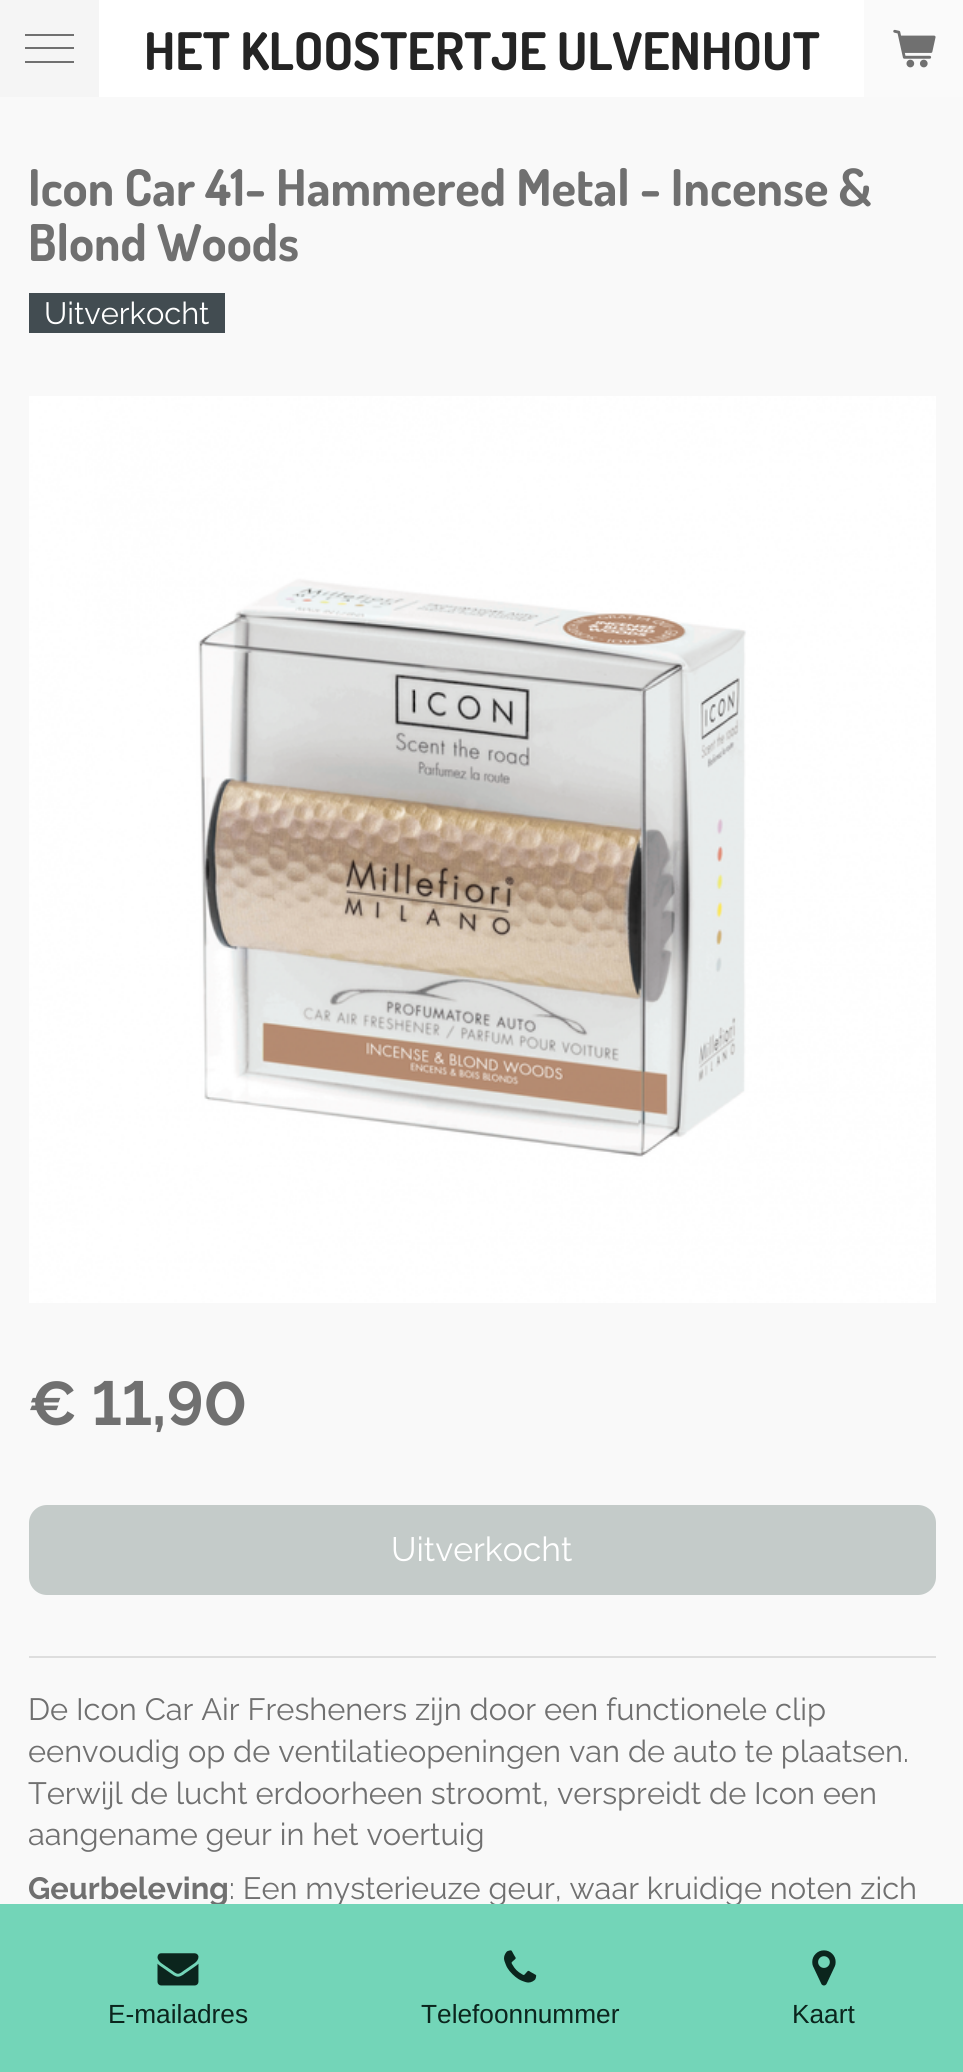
import math
import cairo

surface = cairo.ImageSurface(cairo.FORMAT_RGB24, 963, 2072)
cr = cairo.Context(surface)
options = cairo.FontOptions()
options.set_hint_metrics(cairo.HINT_METRICS_OFF)
options.set_hint_style(cairo.HINT_STYLE_NONE)
cr.set_font_options(options)
cr.set_miter_limit(4)


def rgb(code):
    cr.set_source_rgb(*(v / 255 for v in bytes.fromhex(code[-6:])))


def rrect(x, y, w, h, r):
    cr.new_sub_path()
    for i, (u, v) in enumerate([(x + w - r, y + h - r), (x + r, y + h - r), (x + r, y + r), (x + w - r, y + r)]):
        cr.arc(u, v, r, i * math.pi / 2, (i + 1) * math.pi / 2)
    cr.close_path()


def image(path, x, y, w, h):
    cr.save()
    cr.set_source_surface(cairo.ImageSurface.create_from_png(path), x, y)
    cr.rectangle(x, y, w, h)
    cr.fill()
    cr.restore()


rgb("#ffffff")
cr.paint()
for x, y, w, h, color in [
    (0, 0, 99, 97, "#f5f5f5"),
    (25, 47, 49, 2, "#707070"),
    (25, 34, 49, 2, "#707070"),
    (25, 61, 49, 2, "#707070"),
    (864, 0, 99, 97, "#fafafa"),
]:
    rgb(color)
    cr.rectangle(x, y, w, h)
    cr.fill()
image("img/1.png", 893, 29, 43, 39)
rgb("#f9f9f9")
cr.rectangle(0, 97, 963, 1807)
cr.fill()
rgb("#424c51")
cr.rectangle(29, 293, 196, 40)
cr.fill()
image("img/2.png", 29, 396, 907, 907)
rgb("#c4cbc9")
rrect(29, 1505, 907, 90, 18)
cr.fill()
rgb("#dedede")
cr.rectangle(29, 1656, 907, 2)
cr.fill()
cr.select_font_face("Dosis", cairo.FONT_SLANT_NORMAL, cairo.FONT_WEIGHT_BOLD)
cr.set_font_size(51.75)
rgb("#242424")
cr.move_to(144, 70)
cr.show_text("HET KLOOSTERTJE ULVENHOUT")
cr.set_font_size(50.6)
rgb("#707070")
cr.move_to(28, 206)
cr.show_text("Icon Car 41- Hammered Metal - Incense &")
cr.move_to(28, 261)
cr.show_text("Blond Woods")
cr.select_font_face("Raleway")
cr.set_font_size(30.8)
rgb("#ffffff")
cr.move_to(44, 324)
cr.show_text("Uitverkocht")
cr.select_font_face("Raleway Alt", cairo.FONT_SLANT_NORMAL, cairo.FONT_WEIGHT_BOLD)
cr.set_font_size(61.5)
rgb("#707070")
cr.move_to(28, 1425)
cr.show_text("€ 11,90")
cr.select_font_face("Raleway")
cr.set_font_size(33.75)
rgb("#ffffff")
cr.move_to(391, 1561)
cr.show_text("Uitverkocht")
cr.set_font_size(30.8)
rgb("#707070")
for x, y, s in [
    (28, 1720, "De Icon Car Air Fresheners zijn door een functionele clip"),
    (28, 1762, "eenvoudig op de ventilatieopeningen van de auto te plaatsen."),
    (28, 1804, "Terwijl de lucht erdoorheen stroomt, verspreidt de Icon een"),
    (28, 1845, "aangename geur in het voertuig"),
]:
    cr.move_to(x, y)
    cr.show_text(s)
cr.select_font_face("Raleway", cairo.FONT_SLANT_NORMAL, cairo.FONT_WEIGHT_BOLD)
cr.move_to(28, 1899)
cr.show_text("Geurbeleving")
cr.select_font_face("Raleway")
cr.move_to(229, 1899)
cr.show_text(": Een mysterieuze geur, waar kruidige noten zich")
rgb("#73d5b8")
cr.rectangle(0, 1904, 963, 168)
cr.fill()
image("img/3.png", 157, 1953, 42, 33)
cr.select_font_face("Liberation Sans")
cr.set_font_size(26.25)
rgb("#0b251d")
cr.move_to(108, 2023)
cr.show_text("E-mailadres")
image("img/4.png", 504, 1950, 33, 33)
cr.move_to(421, 2023)
cr.show_text("Telefoonnummer")
image("img/5.png", 812, 1950, 24, 36)
cr.move_to(792, 2023)
cr.show_text("Kaart")
surface.write_to_png("page.png")
